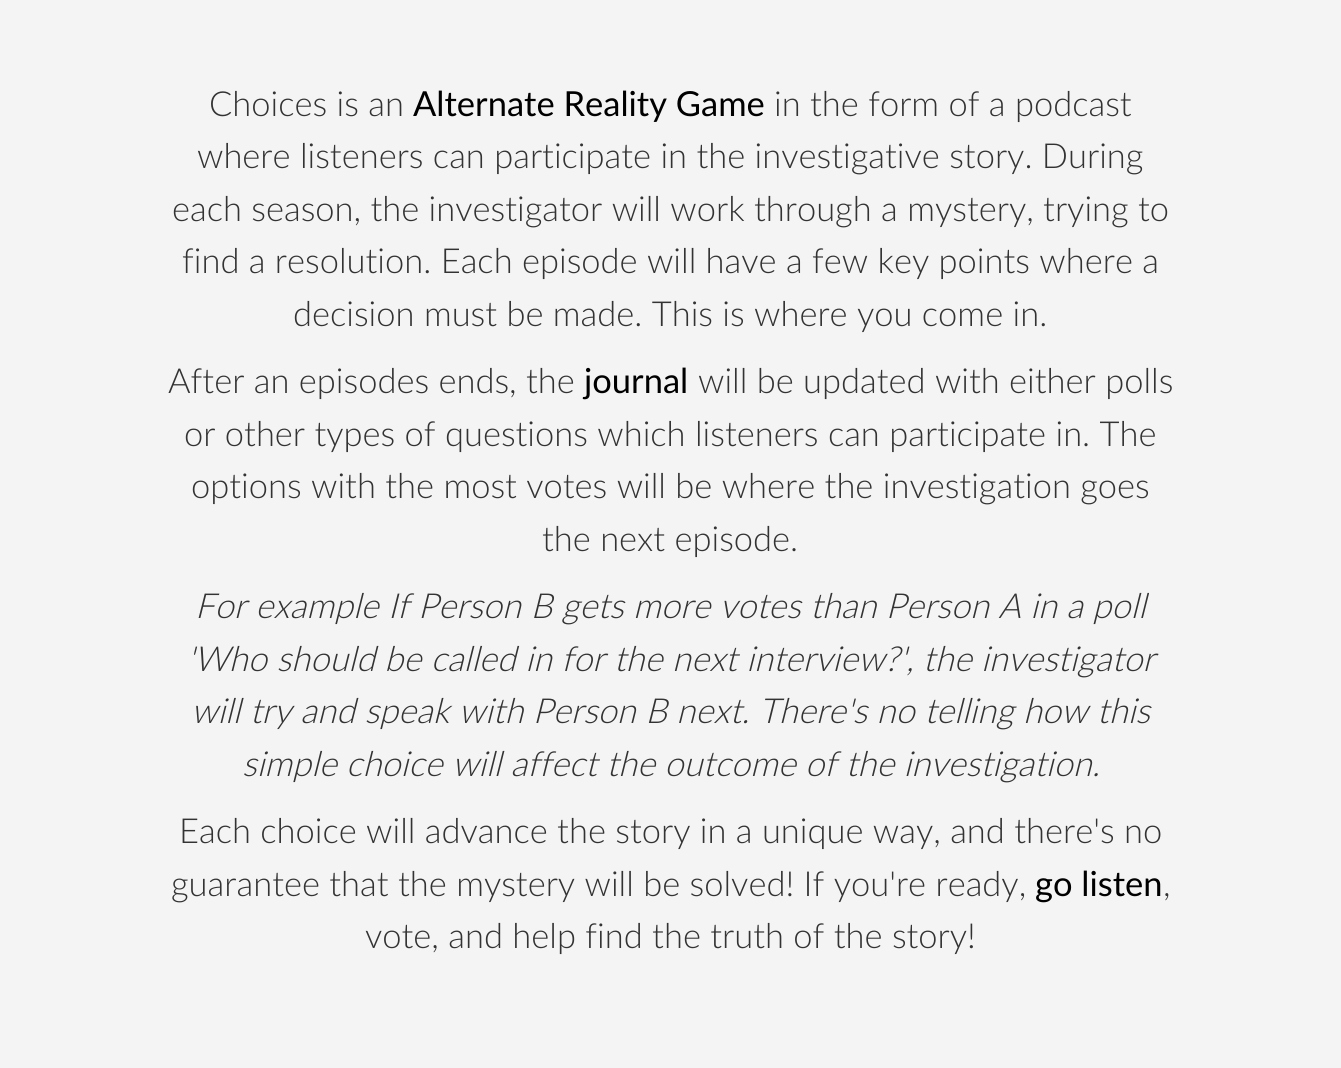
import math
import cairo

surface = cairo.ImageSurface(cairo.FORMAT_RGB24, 1341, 1068)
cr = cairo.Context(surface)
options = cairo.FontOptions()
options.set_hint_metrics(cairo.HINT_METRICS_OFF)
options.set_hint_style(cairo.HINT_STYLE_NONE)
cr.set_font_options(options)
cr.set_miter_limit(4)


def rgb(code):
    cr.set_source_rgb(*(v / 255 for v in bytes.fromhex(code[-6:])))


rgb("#f4f4f4")
cr.paint()
cr.select_font_face("Lato Light")
cr.set_font_size(34.5)
rgb("#333333")
cr.move_to(209, 116)
cr.show_text("Choices is an")
cr.select_font_face("Lato")
rgb("#000000")
cr.move_to(413, 116)
cr.show_text("Alternate Reality Game")
cr.select_font_face("Lato Light")
rgb("#333333")
for x, y, s in [
    (774, 116, "in the form of a podcast"),
    (197, 168, "where listeners can participate in the investigative story. During"),
    (172, 221, "each season, the investigator will work through a mystery, trying to"),
    (182, 273, "find a resolution. Each episode will have a few key points where a"),
    (293, 326, "decision must be made. This is where you come in."),
    (168, 393, "After an episodes ends, the"),
]:
    cr.move_to(x, y)
    cr.show_text(s)
cr.select_font_face("Lato")
rgb("#000000")
cr.move_to(584, 393)
cr.show_text("journal")
cr.select_font_face("Lato Light")
rgb("#333333")
for x, y, s in [
    (698, 393, "will be updated with either polls"),
    (184, 446, "or other types of questions which listeners can participate in. The"),
    (191, 498, "options with the most votes will be where the investigation goes"),
    (542, 551, "the next episode."),
]:
    cr.move_to(x, y)
    cr.show_text(s)
cr.select_font_face("Lato Light", cairo.FONT_SLANT_ITALIC)
for x, y, s in [
    (195, 618, "For example If Person B gets more votes than Person A in a poll"),
    (187, 671, "'Who should be called in for the next interview?', the investigator"),
    (191, 723, "will try and speak with Person B next. There's no telling how this"),
    (242, 776, "simple choice will affect the outcome of the investigation."),
]:
    cr.move_to(x, y)
    cr.show_text(s)
cr.select_font_face("Lato Light")
cr.move_to(179, 843)
cr.show_text("Each choice will advance the story in a unique way, and there's no")
cr.move_to(171, 896)
cr.show_text("guarantee that the mystery will be solved! If you're ready,")
cr.select_font_face("Lato")
rgb("#000000")
cr.move_to(1035, 896)
cr.show_text("go listen")
cr.select_font_face("Lato Light")
rgb("#333333")
cr.move_to(1163, 896)
cr.show_text(",")
cr.move_to(365, 948)
cr.show_text("vote, and help find the truth of the story!")
surface.write_to_png("page.png")
